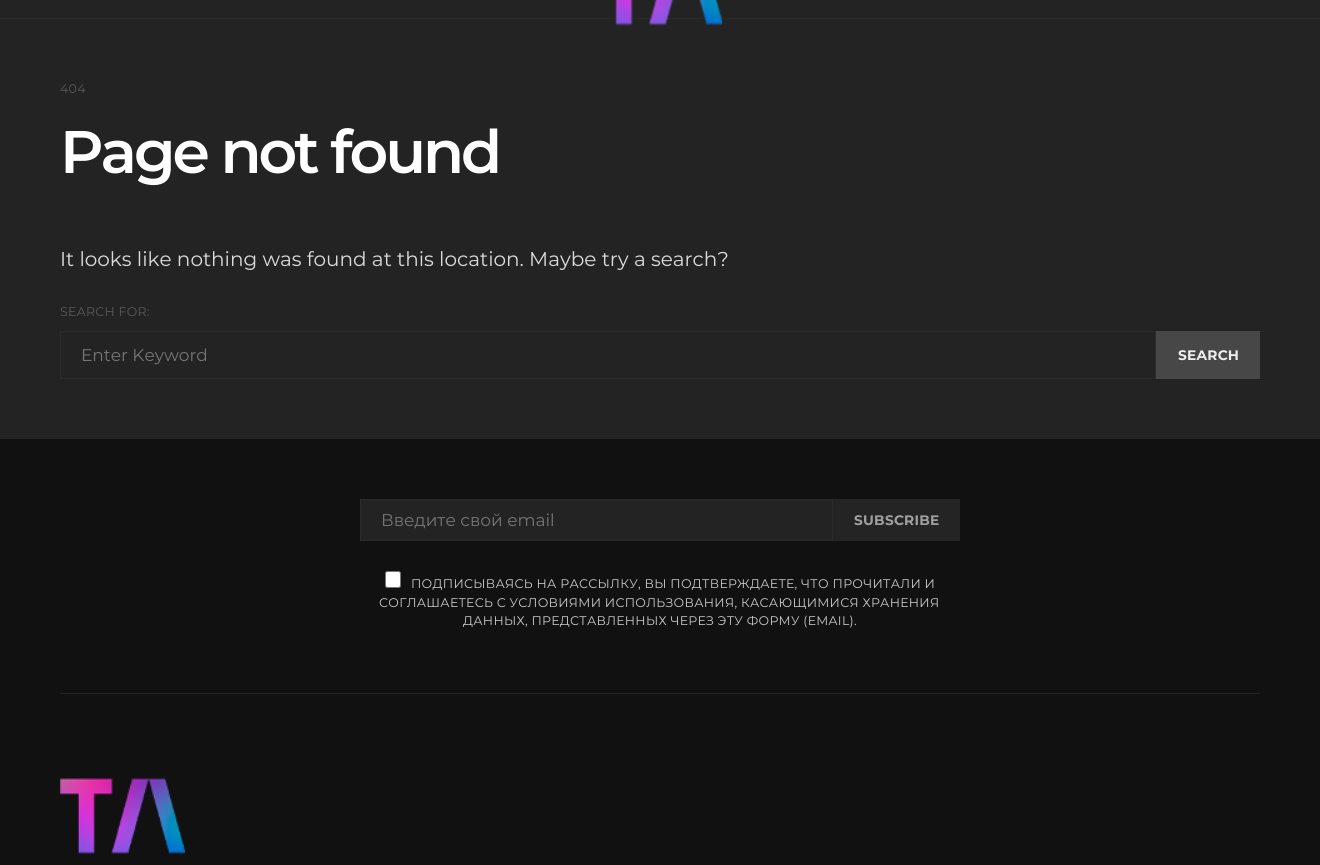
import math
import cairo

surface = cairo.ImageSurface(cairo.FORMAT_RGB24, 1320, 865)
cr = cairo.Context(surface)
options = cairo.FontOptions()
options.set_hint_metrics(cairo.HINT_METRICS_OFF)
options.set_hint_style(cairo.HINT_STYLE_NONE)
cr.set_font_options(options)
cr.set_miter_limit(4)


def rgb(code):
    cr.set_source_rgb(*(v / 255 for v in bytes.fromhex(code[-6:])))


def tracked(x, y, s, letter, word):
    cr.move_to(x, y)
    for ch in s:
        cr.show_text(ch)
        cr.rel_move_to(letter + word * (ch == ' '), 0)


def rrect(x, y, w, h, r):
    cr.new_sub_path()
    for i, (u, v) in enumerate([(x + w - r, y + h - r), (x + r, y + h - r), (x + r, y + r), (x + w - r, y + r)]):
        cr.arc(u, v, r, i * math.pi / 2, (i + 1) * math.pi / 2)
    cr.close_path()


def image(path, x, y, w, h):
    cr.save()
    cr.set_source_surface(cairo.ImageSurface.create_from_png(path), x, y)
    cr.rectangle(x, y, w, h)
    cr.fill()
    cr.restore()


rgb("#232323")
cr.paint()
rgb("#2b2b2b")
cr.rectangle(0, 18, 1320, 1)
cr.fill()
image("img/1.png", 615, 0, 107, 26)
cr.rectangle(60.5, 331.5, 1095, 47)
cr.set_line_width(1)
cr.stroke()
rgb("#474747")
cr.rectangle(1156, 331, 104, 48)
cr.fill()
rgb("#111111")
cr.rectangle(0, 439, 1320, 426)
cr.fill()
rgb("#232323")
cr.rectangle(360.5, 499.5, 472, 41)
cr.fill_preserve()
rgb("#2b2b2b")
cr.stroke()
rgb("#242424")
cr.rectangle(833, 499, 127, 42)
cr.fill()
rgb("#ffffff")
rrect(385.5, 571.5, 15, 16, 2)
cr.fill_preserve()
rgb("#767676")
cr.stroke()
rgb("#242424")
cr.rectangle(60, 693, 1200, 1)
cr.fill()
image("img/2.png", 60, 778, 125, 76)
cr.select_font_face("Montserrat")
cr.set_font_size(12.5)
rgb("#595959")
tracked(60, 93, "404", 0.3, 0)
cr.select_font_face("Montserrat SemiBold")
cr.set_font_size(60)
rgb("#ffffff")
tracked(60, 173, "Page not found", -3, 0)
cr.select_font_face("Montserrat")
cr.set_font_size(20)
rgb("#dbdbdb")
cr.move_to(60, 266)
cr.show_text("It looks like nothing was found at this location. Maybe try a search?")
cr.set_font_size(12.5)
rgb("#595959")
tracked(60, 316, "SEARCH FOR:", 0.3, 0)
cr.set_font_size(17)
rgb("#757575")
cr.move_to(81, 361)
cr.show_text("Enter Keyword")
cr.select_font_face("Montserrat", cairo.FONT_SLANT_NORMAL, cairo.FONT_WEIGHT_BOLD)
cr.set_font_size(13.75)
rgb("#eeeeee")
tracked(1178, 360, "SEARCH", 0.25, 0)
cr.select_font_face("Montserrat")
cr.set_font_size(17)
rgb("#757575")
cr.move_to(381, 526)
cr.show_text("Введите свой email")
cr.select_font_face("Montserrat", cairo.FONT_SLANT_NORMAL, cairo.FONT_WEIGHT_BOLD)
cr.set_font_size(13.75)
rgb("#a0a0a0")
tracked(854, 525, "SUBSCRIBE", 0.25, 0)
cr.select_font_face("Montserrat")
cr.set_font_size(12.5)
rgb("#c9c9c9")
for x, y, s in [
    (411, 588, "ПОДПИСЫВАЯСЬ НА РАССЫЛКУ, ВЫ ПОДТВЕРЖДАЕТЕ, ЧТО ПРОЧИТАЛИ И"),
    (379, 607, "СОГЛАШАЕТЕСЬ С УСЛОВИЯМИ ИСПОЛЬЗОВАНИЯ, КАСАЮЩИМИСЯ ХРАНЕНИЯ"),
    (463, 625, "ДАННЫХ, ПРЕДСТАВЛЕННЫХ ЧЕРЕЗ ЭТУ ФОРМУ (EMAIL)."),
]:
    tracked(x, y, s, 0.3, 0)
surface.write_to_png("page.png")
